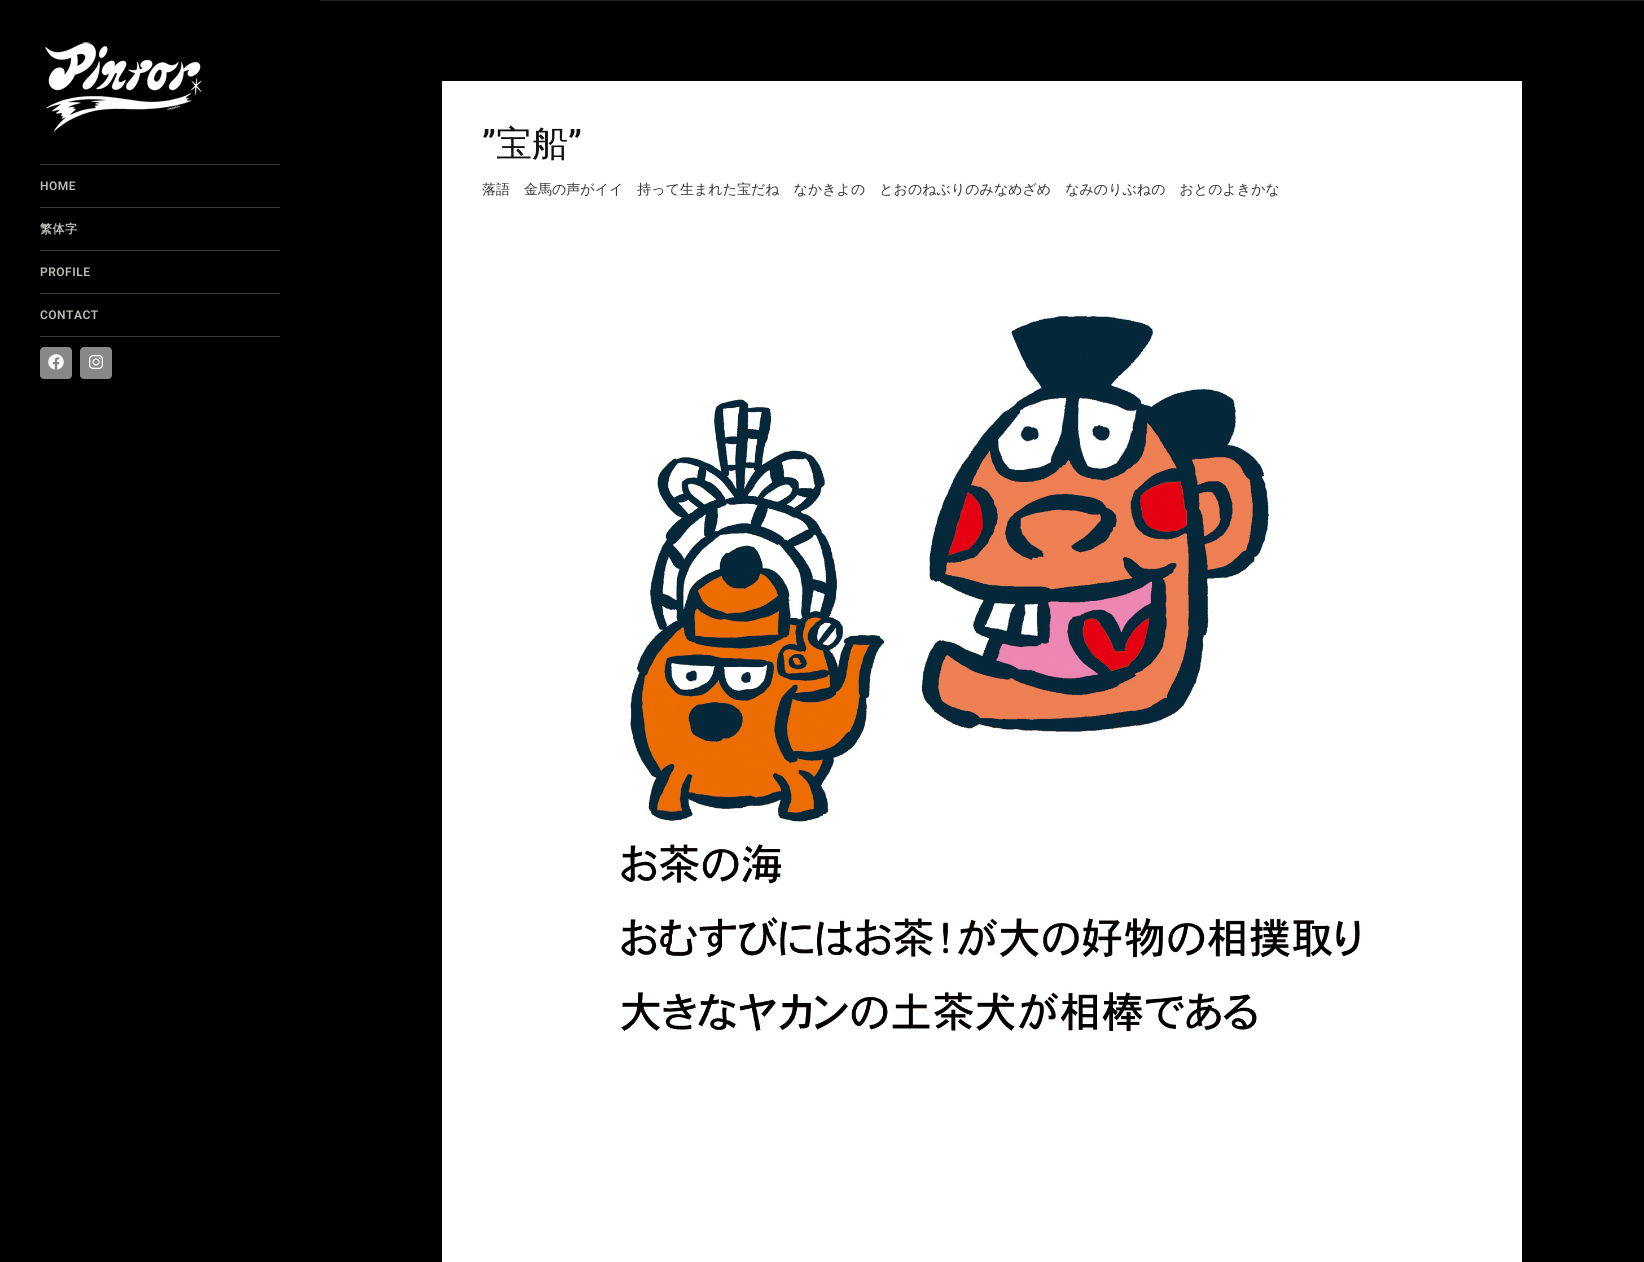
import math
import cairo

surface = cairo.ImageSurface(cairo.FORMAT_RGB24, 1644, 1262)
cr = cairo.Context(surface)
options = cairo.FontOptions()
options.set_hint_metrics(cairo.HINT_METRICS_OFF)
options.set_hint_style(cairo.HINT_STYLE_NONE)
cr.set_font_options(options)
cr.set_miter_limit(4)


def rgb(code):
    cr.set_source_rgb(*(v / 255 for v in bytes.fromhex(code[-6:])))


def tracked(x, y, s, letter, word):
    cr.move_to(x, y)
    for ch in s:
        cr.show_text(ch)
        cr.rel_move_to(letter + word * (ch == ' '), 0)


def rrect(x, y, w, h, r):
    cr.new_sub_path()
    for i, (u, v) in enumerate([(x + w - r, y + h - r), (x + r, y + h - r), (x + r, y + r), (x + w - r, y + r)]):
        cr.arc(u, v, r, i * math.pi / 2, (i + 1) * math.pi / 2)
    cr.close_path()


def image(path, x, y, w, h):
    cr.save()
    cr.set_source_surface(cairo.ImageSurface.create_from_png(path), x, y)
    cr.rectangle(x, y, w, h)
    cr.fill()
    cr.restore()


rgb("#000000")
cr.paint()
rgb("#ffffff")
cr.rectangle(442, 81, 1080, 1181)
cr.fill()
image("img/1.png", 621, 316, 739, 716)
rgb("#222222")
cr.rectangle(320, 0, 1324, 1)
cr.fill()
image("img/2.png", 45, 42, 157, 90)
for x, y, w, h, color in [
    (40, 164, 240, 1, "#383838"),
    (40, 207, 240, 1, "#383838"),
    (40, 250, 240, 1, "#383838"),
    (40, 293, 240, 1, "#383838"),
    (40, 336, 240, 1, "#383838"),
]:
    rgb(color)
    cr.rectangle(x, y, w, h)
    cr.fill()
rgb("#888888")
rrect(40, 347, 32, 32, 4)
cr.fill()
image("img/3.png", 48, 354, 16, 16)
rrect(80, 347, 32, 32, 4)
cr.fill()
image("img/4.png", 89, 355, 14, 14)
cr.select_font_face("Roboto Medium")
cr.set_font_size(36)
rgb("#111111")
cr.move_to(482, 156)
cr.show_text("”")
cr.select_font_face("WenQuanYi Zen Hei Medium")
cr.move_to(496, 156)
cr.show_text("宝船")
cr.select_font_face("Roboto Medium")
cr.move_to(568, 156)
cr.show_text("”")
cr.select_font_face("WenQuanYi Zen Hei Medium")
cr.set_font_size(14)
rgb("#333333")
cr.move_to(482, 194)
cr.show_text("落語　金馬の声がイイ　持って生まれた宝だね　なかきよの　とおのねぶりのみなめざめ　なみのりぶねの　おとのよきかな")
cr.select_font_face("Roboto SemiBold")
cr.set_font_size(12)
rgb("#bebdb5")
tracked(40, 190, "HOME", 0.5, 0)
cr.select_font_face("WenQuanYi Zen Hei", cairo.FONT_SLANT_NORMAL, cairo.FONT_WEIGHT_BOLD)
tracked(40, 233, "繁体字", 0.5, 0)
cr.select_font_face("Roboto SemiBold")
tracked(40, 276, "PROFILE", 0.5, 0)
tracked(40, 319, "CONTACT", 0.5, 0)
surface.write_to_png("page.png")
